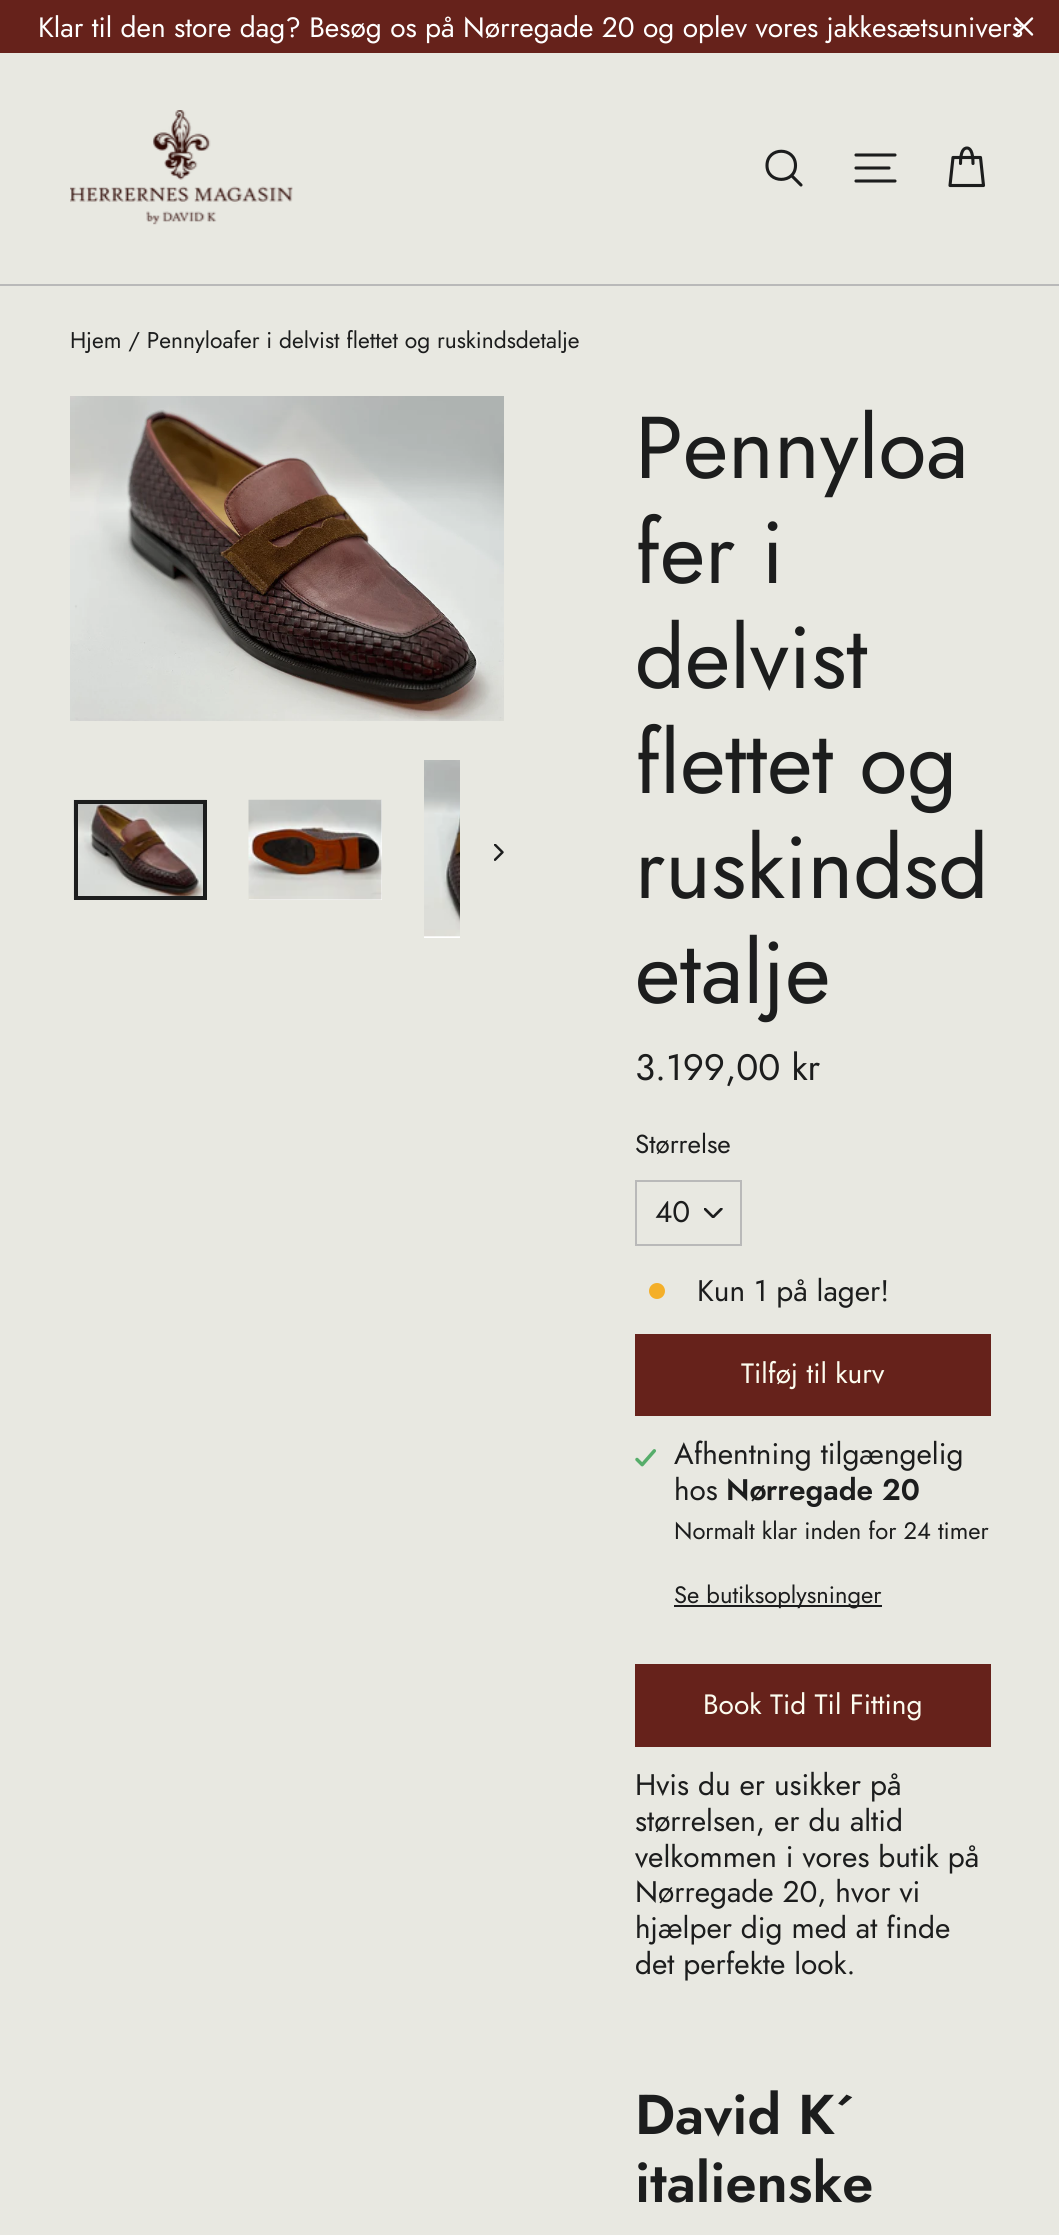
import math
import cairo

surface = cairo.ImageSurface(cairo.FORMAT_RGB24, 1059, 2235)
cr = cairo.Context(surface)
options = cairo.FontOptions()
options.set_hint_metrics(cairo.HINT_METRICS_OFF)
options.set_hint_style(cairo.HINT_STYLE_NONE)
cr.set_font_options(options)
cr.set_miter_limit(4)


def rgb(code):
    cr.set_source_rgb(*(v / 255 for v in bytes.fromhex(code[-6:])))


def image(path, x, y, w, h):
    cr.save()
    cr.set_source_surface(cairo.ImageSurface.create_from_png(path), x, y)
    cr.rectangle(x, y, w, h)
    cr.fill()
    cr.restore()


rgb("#e8e8e1")
cr.paint()
rgb("#66221b")
cr.rectangle(0, 0, 1059, 53)
cr.fill()
cr.new_path()
cr.move_to(1016, 18.5)
cr.line_to(1032, 34.5)
cr.move_to(1032, 18.5)
cr.line_to(1016, 34.5)
rgb("#ffffff")
cr.set_line_width(2.4)
cr.set_line_cap(cairo.LINE_CAP_ROUND)
cr.set_line_join(cairo.LINE_JOIN_ROUND)
cr.stroke()
rgb("#b9b9b9")
cr.rectangle(0, 284, 1059, 2)
cr.fill()
image("img/1.png", 70, 110, 223, 115)
cr.new_path()
cr.move_to(795.5, 165.5)
cr.curve_to(795.5, 184, 767, 184, 767, 165.5)
cr.curve_to(767, 146.5, 795.5, 146.5, 795.5, 165.5)
cr.close_path()
cr.move_to(801, 185)
cr.line_to(791.5, 175.5)
rgb("#1c1d1d")
cr.set_line_width(3.1)
cr.stroke()
cr.new_path()
cr.move_to(856, 155)
cr.line_to(895, 155)
cr.move_to(856, 168)
cr.line_to(889, 168)
cr.move_to(856, 181)
cr.line_to(895, 181)
cr.stroke()
cr.new_path()
cr.move_to(960.5, 163.5)
cr.curve_to(960.5, 151.5, 963.5, 148, 967, 148)
cr.curve_to(970, 148, 973, 151.5, 973, 163.5)
cr.move_to(953, 157.5)
cr.line_to(980.5, 157.5)
cr.line_to(983.5, 185.5)
cr.line_to(950, 185.5)
cr.close_path()
cr.stroke()
image("img/2.png", 70, 396, 434, 325)
image("img/3.png", 73, 799, 134, 101)
cr.rectangle(76, 802, 129, 96)
cr.set_line_width(4)
cr.set_line_cap(cairo.LINE_CAP_BUTT)
cr.set_line_join(cairo.LINE_JOIN_MITER)
cr.stroke()
rgb("#ffffff")
cr.rectangle(249, 800, 133, 100)
cr.fill()
image("img/4.png", 248, 799, 134, 101)
cr.rectangle(424, 936, 36, 2)
cr.fill()
image("img/5.png", 424, 760, 36, 177)
image("img/6.png", 494, 844, 10, 17)
image("img/7.png", 704, 1208, 19, 10)
cr.rectangle(636, 1181, 105, 64)
rgb("#b9b9b9")
cr.set_line_width(2)
cr.stroke()
rgb("#f4af29")
cr.arc(657, 1291, 8, 0, 2 * math.pi)
cr.fill()
rgb("#66221b")
cr.rectangle(635, 1334, 356, 82)
cr.fill()
image("img/8.png", 635, 1449, 21, 18)
rgb("#1c1d1d")
cr.rectangle(674, 1605, 208, 2)
cr.fill()
rgb("#66221b")
cr.rectangle(635, 1664, 356, 83)
cr.fill()
cr.select_font_face("Jost")
cr.set_font_size(28)
rgb("#ffffff")
cr.move_to(38, 37)
cr.show_text("Klar til den store dag? Besøg os på Nørregade 20 og oplev vores jakkesætsunivers")
cr.set_font_size(22.75)
rgb("#1c1d1d")
cr.move_to(70, 348)
cr.show_text("Hjem / Pennyloafer i delvist flettet og ruskindsdetalje")
cr.set_font_size(87.5)
for x, y, s in [
    (635, 478, "Pennyloa"),
    (635, 583, "fer i"),
    (635, 688, "delvist"),
    (635, 793, "flettet og"),
    (635, 898, "ruskindsd"),
    (635, 1003, "etalje"),
]:
    cr.move_to(x, y)
    cr.show_text(s)
cr.set_font_size(36.75)
cr.move_to(635, 1080)
cr.show_text("3.199,00 kr")
cr.set_font_size(26)
cr.move_to(635, 1153)
cr.show_text("Størrelse")
cr.set_font_size(29.75)
cr.move_to(655, 1222)
cr.show_text("40")
cr.move_to(697, 1301)
cr.show_text("Kun 1 på lager!")
cr.set_font_size(28)
rgb("#fcfcef")
cr.move_to(741, 1383)
cr.show_text("Tilføj til kurv")
cr.set_font_size(29.75)
rgb("#1c1d1d")
cr.move_to(674, 1464)
cr.show_text("Afhentning tilgængelig")
cr.move_to(674, 1500)
cr.show_text("hos")
cr.select_font_face("Jost SemiBold")
cr.move_to(726, 1500)
cr.show_text("Nørregade 20")
cr.select_font_face("Jost")
cr.set_font_size(23.75)
cr.move_to(674, 1539)
cr.show_text("Normalt klar inden for 24 timer")
cr.move_to(674, 1603)
cr.show_text("Se butiksoplysninger")
cr.set_font_size(28)
rgb("#fcfcef")
cr.move_to(703, 1714)
cr.show_text("Book Tid Til Fitting")
cr.set_font_size(29.75)
rgb("#1c1d1d")
for x, y, s in [
    (635, 1795, "Hvis du er usikker på"),
    (635, 1831, "størrelsen, er du altid"),
    (635, 1867, "velkommen i vores butik på"),
    (635, 1902, "Nørregade 20, hvor vi"),
    (635, 1938, "hjælper dig med at finde"),
    (635, 1974, "det perfekte look."),
]:
    cr.move_to(x, y)
    cr.show_text(s)
cr.select_font_face("Jost SemiBold")
cr.set_font_size(56)
cr.move_to(635, 2134)
cr.show_text("David K´")
cr.move_to(635, 2202)
cr.show_text("italienske")
surface.write_to_png("page.png")
